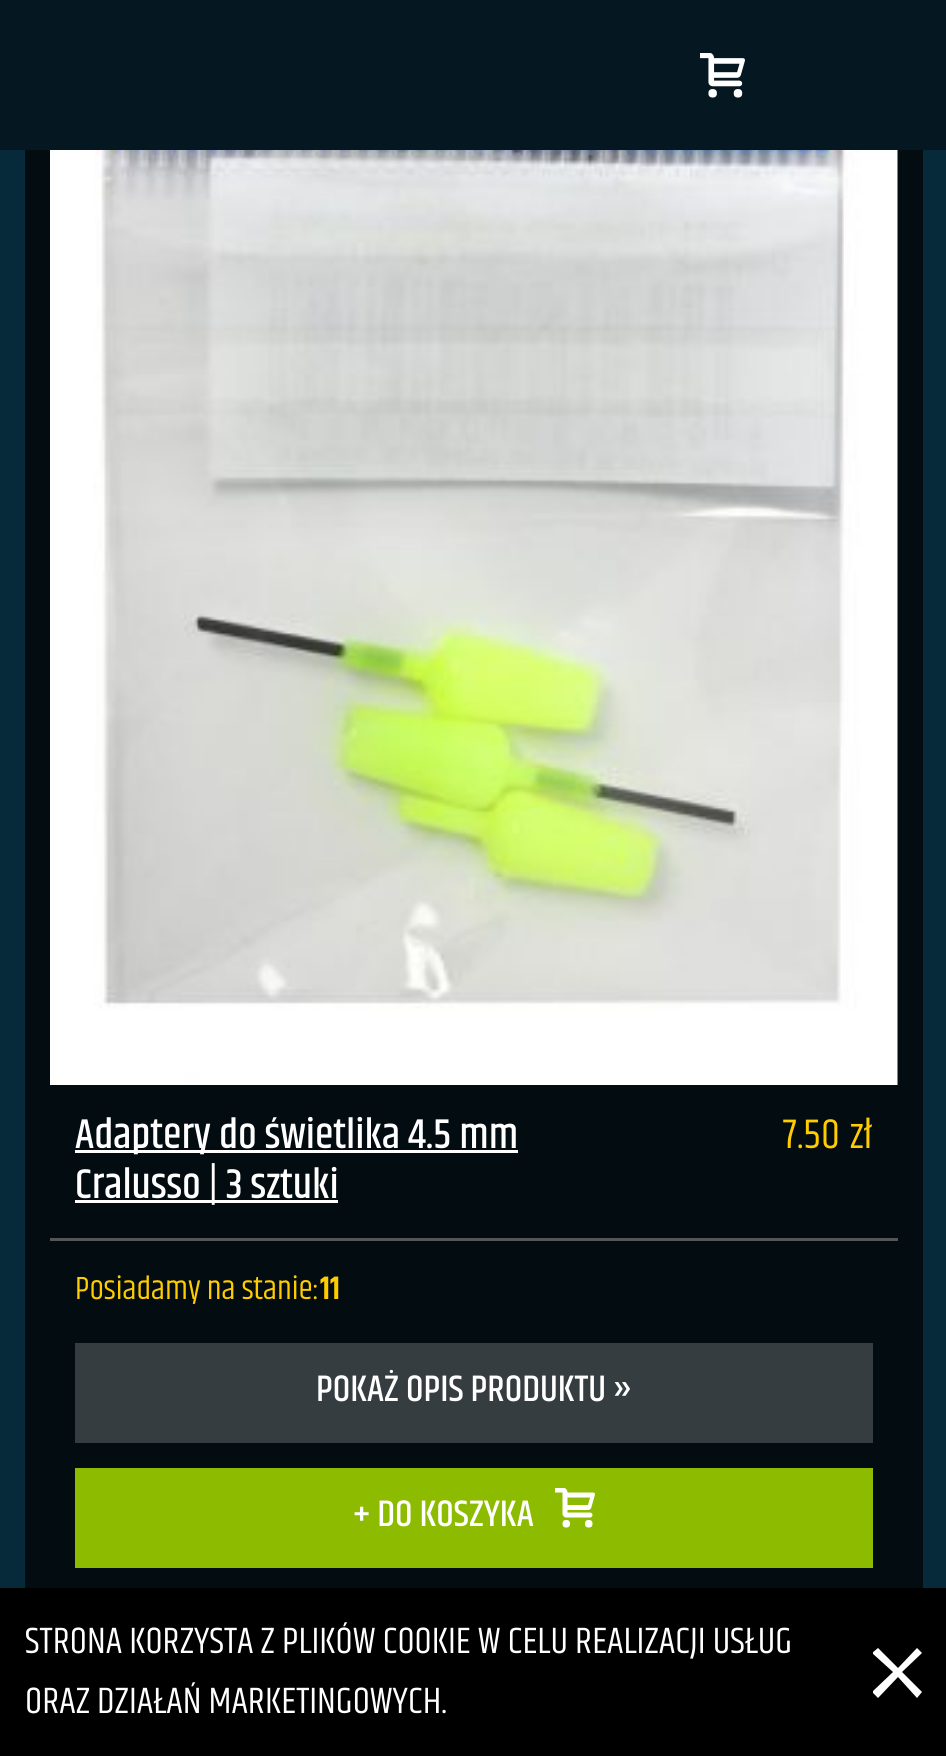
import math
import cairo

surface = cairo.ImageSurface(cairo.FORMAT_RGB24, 946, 1756)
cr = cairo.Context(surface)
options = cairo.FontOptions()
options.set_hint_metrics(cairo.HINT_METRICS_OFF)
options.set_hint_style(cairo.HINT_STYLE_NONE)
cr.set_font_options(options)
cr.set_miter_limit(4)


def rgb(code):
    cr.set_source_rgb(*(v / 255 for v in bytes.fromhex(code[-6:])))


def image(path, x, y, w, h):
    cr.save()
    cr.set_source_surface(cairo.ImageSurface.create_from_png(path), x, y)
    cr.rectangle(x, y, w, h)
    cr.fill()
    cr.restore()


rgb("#072a3a")
cr.paint()
rgb("#051720")
cr.rectangle(0, 0, 946, 150)
cr.fill()
image("img/1.png", 700, 53, 45, 45)
rgb("#020c11")
cr.rectangle(25, 150, 898, 1438)
cr.fill()
image("img/2.png", 50, 150, 848, 935)
for x, y, w, h, color in [
    (50, 1238, 848, 3, "#555555"),
    (75, 1150, 443, 3, "#ffffff"),
    (75, 1200, 263, 3, "#ffffff"),
    (75, 1343, 798, 100, "#353d41"),
    (75, 1468, 798, 100, "#8cbb00"),
]:
    rgb(color)
    cr.rectangle(x, y, w, h)
    cr.fill()
image("img/3.png", 555, 1488, 40, 40)
rgb("#000000")
cr.rectangle(0, 1588, 946, 168)
cr.fill()
cr.save()
cr.rectangle(873, 1648, 50, 50)
cr.clip()
rgb("#ffffff")
cr.new_path()
cr.move_to(922, 1653)
cr.line_to(917, 1648)
cr.line_to(898, 1668)
cr.line_to(878, 1648)
cr.line_to(872, 1653)
cr.line_to(893, 1672)
cr.line_to(872, 1692)
cr.line_to(878, 1698)
cr.line_to(898, 1677)
cr.line_to(917, 1698)
cr.line_to(922, 1692)
cr.line_to(902, 1672)
cr.close_path()
cr.fill()
cr.restore()
cr.select_font_face("Khand Medium")
cr.set_font_size(42.25)
rgb("#ffffff")
cr.move_to(75, 1148)
cr.show_text("Adaptery do świetlika 4.5 mm")
cr.move_to(75, 1198)
cr.show_text("Cralusso | 3 sztuki")
cr.select_font_face("Khand")
rgb("#ffcc00")
cr.move_to(783, 1148)
cr.show_text("7.50")
cr.move_to(850, 1148)
cr.show_text("zł")
cr.set_font_size(32.75)
cr.move_to(75, 1299)
cr.show_text("Posiadamy na stanie:")
cr.select_font_face("Khand SemiBold")
cr.move_to(320, 1299)
cr.show_text("11")
cr.select_font_face("Khand Medium")
cr.set_font_size(37.5)
rgb("#ffffff")
cr.move_to(316, 1401)
cr.show_text("POKAŻ OPIS PRODUKTU »")
cr.move_to(353, 1526)
cr.show_text("+ DO KOSZYKA")
cr.select_font_face("Khand")
cr.move_to(25, 1653)
cr.show_text("STRONA KORZYSTA Z PLIKÓW COOKIE W CELU REALIZACJI USŁUG")
cr.move_to(25, 1713)
cr.show_text("ORAZ DZIAŁAŃ MARKETINGOWYCH.")
surface.write_to_png("page.png")
